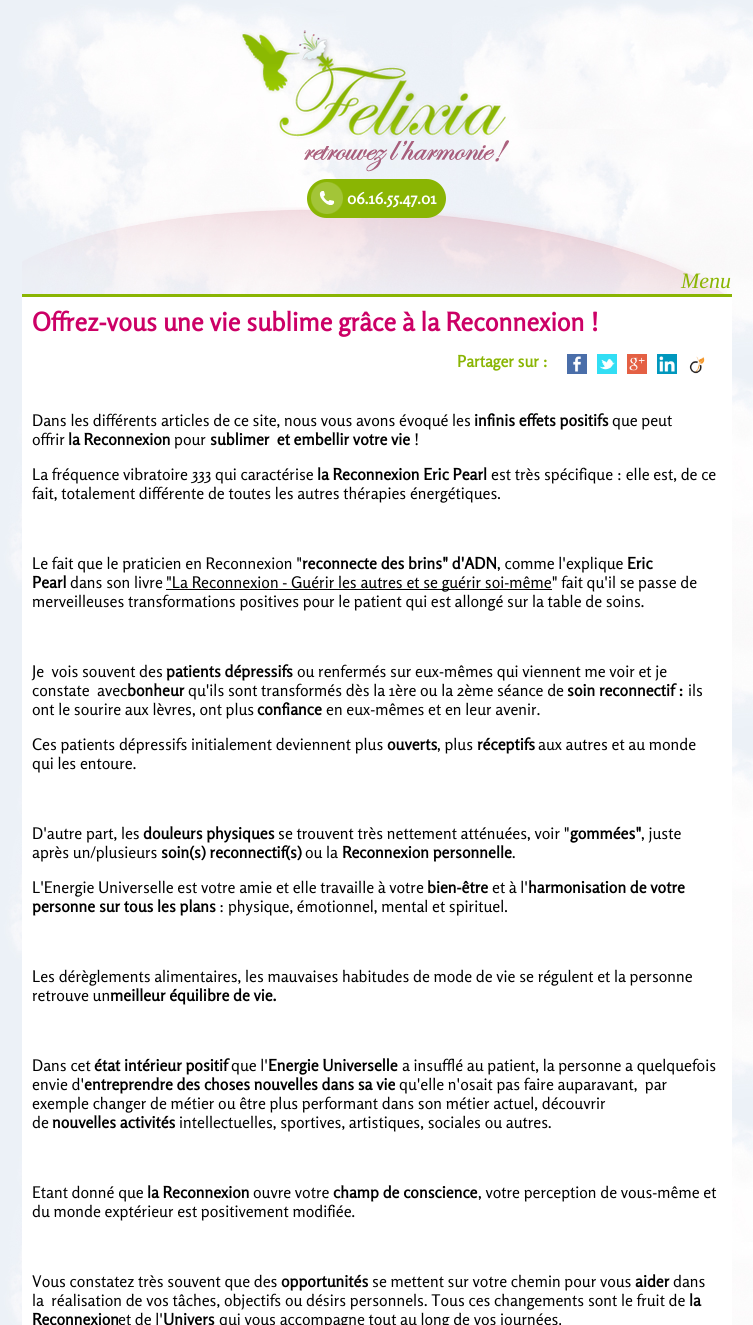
import math
import cairo

surface = cairo.ImageSurface(cairo.FORMAT_RGB24, 753, 1325)
cr = cairo.Context(surface)
options = cairo.FontOptions()
options.set_hint_metrics(cairo.HINT_METRICS_OFF)
options.set_hint_style(cairo.HINT_STYLE_NONE)
cr.set_font_options(options)
cr.set_miter_limit(4)


def rgb(code):
    cr.set_source_rgb(*(v / 255 for v in bytes.fromhex(code[-6:])))


def rrect(x, y, w, h, r):
    cr.new_sub_path()
    for i, (u, v) in enumerate([(x + w - r, y + h - r), (x + r, y + h - r), (x + r, y + r), (x + w - r, y + r)]):
        cr.arc(u, v, r, i * math.pi / 2, (i + 1) * math.pi / 2)
    cr.close_path()


def image(path, x, y, w, h):
    cr.save()
    cr.set_source_surface(cairo.ImageSurface.create_from_png(path), x, y)
    cr.rectangle(x, y, w, h)
    cr.fill()
    cr.restore()


rgb("#ffffff")
cr.paint()
image("img/1.png", 0, 0, 753, 1325)
image("img/2.png", 22, 207, 705, 87)
rgb("#8ab503")
cr.rectangle(22, 294, 710, 3)
cr.fill()
image("img/3.png", 240, 30, 269, 142)
rrect(307, 179, 139, 39, 19.5)
cr.fill()
image("img/4.png", 311, 182, 32, 32)
rgb("#ffffff")
cr.rectangle(22, 297, 710, 1028)
cr.fill()
image("img/5.png", 567, 354, 20, 20)
image("img/6.png", 597, 354, 20, 20)
image("img/7.png", 627, 354, 20, 20)
image("img/8.png", 657, 354, 20, 20)
image("img/9.png", 689, 356, 16, 18)
rgb("#000000")
cr.rectangle(166, 589, 386, 1)
cr.fill()
cr.select_font_face("Rosario", cairo.FONT_SLANT_NORMAL, cairo.FONT_WEIGHT_BOLD)
cr.set_font_size(16)
rgb("#ffffff")
cr.move_to(347, 204)
cr.show_text("06.16.55.47.01")
cr.select_font_face("Liberation Serif", cairo.FONT_SLANT_ITALIC)
cr.set_font_size(22)
rgb("#8ab503")
cr.move_to(681, 288)
cr.show_text("Menu")
cr.select_font_face("Rosario", cairo.FONT_SLANT_NORMAL, cairo.FONT_WEIGHT_BOLD)
cr.set_font_size(25.6)
rgb("#cc0066")
cr.move_to(32, 331)
cr.show_text("Offrez-vous une vie sublime grâce à la Reconnexion !")
cr.set_font_size(16)
rgb("#8ab503")
cr.move_to(457, 367)
cr.show_text("Partager sur :")
cr.select_font_face("Rosario")
rgb("#000000")
cr.move_to(32, 426)
cr.show_text("Dans les différents articles de ce site, nous vous avons évoqué les")
cr.select_font_face("Rosario", cairo.FONT_SLANT_NORMAL, cairo.FONT_WEIGHT_BOLD)
cr.move_to(474, 426)
cr.show_text("infinis effets positifs")
cr.select_font_face("Rosario")
cr.move_to(612, 426)
cr.show_text("que peut")
cr.move_to(32, 445)
cr.show_text("offrir")
cr.select_font_face("Rosario", cairo.FONT_SLANT_NORMAL, cairo.FONT_WEIGHT_BOLD)
cr.move_to(68, 445)
cr.show_text("la Reconnexion")
cr.select_font_face("Rosario")
cr.move_to(174, 445)
cr.show_text("pour")
cr.select_font_face("Rosario", cairo.FONT_SLANT_NORMAL, cairo.FONT_WEIGHT_BOLD)
cr.move_to(210, 445)
cr.show_text("sublimer  et embellir votre vie")
cr.select_font_face("Rosario")
cr.move_to(414, 445)
cr.show_text("!")
cr.move_to(32, 480)
cr.show_text("La fréquence vibratoire 333 qui caractérise")
cr.select_font_face("Rosario", cairo.FONT_SLANT_NORMAL, cairo.FONT_WEIGHT_BOLD)
cr.move_to(317, 480)
cr.show_text("la Reconnexion Eric Pearl")
cr.select_font_face("Rosario")
for x, y, s in [
    (491, 480, "est très spécifique : elle est, de ce"),
    (32, 499, "fait, totalement différente de toutes les autres thérapies énergétiques."),
    (32, 569, "Le fait que le praticien en Reconnexion \""),
]:
    cr.move_to(x, y)
    cr.show_text(s)
cr.select_font_face("Rosario", cairo.FONT_SLANT_NORMAL, cairo.FONT_WEIGHT_BOLD)
cr.move_to(302, 569)
cr.show_text("reconnecte des brins\" d'ADN")
cr.select_font_face("Rosario")
cr.move_to(497, 569)
cr.show_text(", comme l'explique")
cr.select_font_face("Rosario", cairo.FONT_SLANT_NORMAL, cairo.FONT_WEIGHT_BOLD)
cr.move_to(627, 569)
cr.show_text("Eric")
cr.move_to(32, 588)
cr.show_text("Pearl")
cr.select_font_face("Rosario")
for x, y, s in [
    (70, 588, "dans son livre"),
    (166, 588, "\"La Reconnexion - Guérir les autres et se guérir soi-même\" fait qu'il se passe de"),
    (32, 607, "merveilleuses transformations positives pour le patient qui est allongé sur la table de soins."),
    (32, 677, "Je  vois souvent des"),
]:
    cr.move_to(x, y)
    cr.show_text(s)
cr.select_font_face("Rosario", cairo.FONT_SLANT_NORMAL, cairo.FONT_WEIGHT_BOLD)
cr.move_to(166, 677)
cr.show_text("patients dépressifs")
cr.select_font_face("Rosario")
cr.move_to(297, 677)
cr.show_text("ou renfermés sur eux-mêmes qui viennent me voir et je")
cr.move_to(32, 696)
cr.show_text("constate  avec")
cr.select_font_face("Rosario", cairo.FONT_SLANT_NORMAL, cairo.FONT_WEIGHT_BOLD)
cr.move_to(127, 696)
cr.show_text("bonheur")
cr.select_font_face("Rosario")
cr.move_to(188, 696)
cr.show_text("qu'ils sont transformés dès la 1ère ou la 2ème séance de")
cr.select_font_face("Rosario", cairo.FONT_SLANT_NORMAL, cairo.FONT_WEIGHT_BOLD)
cr.move_to(567, 696)
cr.show_text("soin reconnectif :")
cr.select_font_face("Rosario")
cr.move_to(688, 696)
cr.show_text("ils")
cr.move_to(32, 715)
cr.show_text("ont le sourire aux lèvres, ont plus")
cr.select_font_face("Rosario", cairo.FONT_SLANT_NORMAL, cairo.FONT_WEIGHT_BOLD)
cr.move_to(257, 715)
cr.show_text("confiance")
cr.select_font_face("Rosario")
cr.move_to(326, 715)
cr.show_text("en eux-mêmes et en leur avenir.")
cr.move_to(32, 750)
cr.show_text("Ces patients dépressifs initialement deviennent plus")
cr.select_font_face("Rosario", cairo.FONT_SLANT_NORMAL, cairo.FONT_WEIGHT_BOLD)
cr.move_to(387, 750)
cr.show_text("ouverts")
cr.select_font_face("Rosario")
cr.move_to(437, 750)
cr.show_text(", plus")
cr.select_font_face("Rosario", cairo.FONT_SLANT_NORMAL, cairo.FONT_WEIGHT_BOLD)
cr.move_to(477, 750)
cr.show_text("réceptifs")
cr.select_font_face("Rosario")
for x, y, s in [
    (538, 750, "aux autres et au monde"),
    (32, 769, "qui les entoure."),
    (32, 839, "D'autre part, les"),
]:
    cr.move_to(x, y)
    cr.show_text(s)
cr.select_font_face("Rosario", cairo.FONT_SLANT_NORMAL, cairo.FONT_WEIGHT_BOLD)
cr.move_to(143, 839)
cr.show_text("douleurs physiques")
cr.select_font_face("Rosario")
cr.move_to(278, 839)
cr.show_text("se trouvent très nettement atténuées, voir \"")
cr.select_font_face("Rosario", cairo.FONT_SLANT_NORMAL, cairo.FONT_WEIGHT_BOLD)
cr.move_to(570, 839)
cr.show_text("gommées\"")
cr.select_font_face("Rosario")
cr.move_to(641, 839)
cr.show_text(", juste")
cr.move_to(32, 858)
cr.show_text("après un/plusieurs")
cr.select_font_face("Rosario", cairo.FONT_SLANT_NORMAL, cairo.FONT_WEIGHT_BOLD)
cr.move_to(161, 858)
cr.show_text("soin(s) reconnectif(s)")
cr.select_font_face("Rosario")
cr.move_to(305, 858)
cr.show_text("ou la")
cr.select_font_face("Rosario", cairo.FONT_SLANT_NORMAL, cairo.FONT_WEIGHT_BOLD)
cr.move_to(342, 858)
cr.show_text("Reconnexion personnelle")
cr.select_font_face("Rosario")
cr.move_to(512, 858)
cr.show_text(".")
cr.move_to(32, 893)
cr.show_text("L'Energie Universelle est votre amie et elle travaille à votre")
cr.select_font_face("Rosario", cairo.FONT_SLANT_NORMAL, cairo.FONT_WEIGHT_BOLD)
cr.move_to(427, 893)
cr.show_text("bien-être")
cr.select_font_face("Rosario")
cr.move_to(492, 893)
cr.show_text("et à l'")
cr.select_font_face("Rosario", cairo.FONT_SLANT_NORMAL, cairo.FONT_WEIGHT_BOLD)
cr.move_to(528, 893)
cr.show_text("harmonisation de votre")
cr.move_to(32, 912)
cr.show_text("personne sur tous les plans")
cr.select_font_face("Rosario")
for x, y, s in [
    (219, 912, ": physique, émotionnel, mental et spirituel."),
    (32, 982, "Les dérèglements alimentaires, les mauvaises habitudes de mode de vie se régulent et la personne"),
    (32, 1001, "retrouve un"),
]:
    cr.move_to(x, y)
    cr.show_text(s)
cr.select_font_face("Rosario", cairo.FONT_SLANT_NORMAL, cairo.FONT_WEIGHT_BOLD)
cr.move_to(110, 1001)
cr.show_text("meilleur équilibre de vie.")
cr.select_font_face("Rosario")
cr.move_to(32, 1071)
cr.show_text("Dans cet")
cr.select_font_face("Rosario", cairo.FONT_SLANT_NORMAL, cairo.FONT_WEIGHT_BOLD)
cr.move_to(94, 1071)
cr.show_text("état intérieur positif")
cr.select_font_face("Rosario")
cr.move_to(231, 1071)
cr.show_text("que l'")
cr.select_font_face("Rosario", cairo.FONT_SLANT_NORMAL, cairo.FONT_WEIGHT_BOLD)
cr.move_to(268, 1071)
cr.show_text("Energie Universelle")
cr.select_font_face("Rosario")
cr.move_to(402, 1071)
cr.show_text("a insufflé au patient, la personne a quelquefois")
cr.move_to(32, 1090)
cr.show_text("envie d'")
cr.select_font_face("Rosario", cairo.FONT_SLANT_NORMAL, cairo.FONT_WEIGHT_BOLD)
cr.move_to(84, 1090)
cr.show_text("entreprendre des choses nouvelles dans sa vie")
cr.select_font_face("Rosario")
for x, y, s in [
    (399, 1090, "qu'elle n'osait pas faire auparavant,  par"),
    (32, 1109, "exemple changer de métier ou être plus performant dans son métier actuel, découvrir"),
    (32, 1128, "de"),
]:
    cr.move_to(x, y)
    cr.show_text(s)
cr.select_font_face("Rosario", cairo.FONT_SLANT_NORMAL, cairo.FONT_WEIGHT_BOLD)
cr.move_to(52, 1128)
cr.show_text("nouvelles activités")
cr.select_font_face("Rosario")
cr.move_to(179, 1128)
cr.show_text("intellectuelles, sportives, artistiques, sociales ou autres.")
cr.move_to(32, 1198)
cr.show_text("Etant donné que")
cr.select_font_face("Rosario", cairo.FONT_SLANT_NORMAL, cairo.FONT_WEIGHT_BOLD)
cr.move_to(147, 1198)
cr.show_text("la Reconnexion")
cr.select_font_face("Rosario")
cr.move_to(253, 1198)
cr.show_text("ouvre votre")
cr.select_font_face("Rosario", cairo.FONT_SLANT_NORMAL, cairo.FONT_WEIGHT_BOLD)
cr.move_to(333, 1198)
cr.show_text("champ de conscience")
cr.select_font_face("Rosario")
for x, y, s in [
    (478, 1198, ", votre perception de vous-même et"),
    (32, 1217, "du monde exptérieur est positivement modifiée."),
    (32, 1287, "Vous constatez très souvent que des"),
]:
    cr.move_to(x, y)
    cr.show_text(s)
cr.select_font_face("Rosario", cairo.FONT_SLANT_NORMAL, cairo.FONT_WEIGHT_BOLD)
cr.move_to(281, 1287)
cr.show_text("opportunités")
cr.select_font_face("Rosario")
cr.move_to(372, 1287)
cr.show_text("se mettent sur votre chemin pour vous")
cr.select_font_face("Rosario", cairo.FONT_SLANT_NORMAL, cairo.FONT_WEIGHT_BOLD)
cr.move_to(635, 1287)
cr.show_text("aider")
cr.select_font_face("Rosario")
cr.move_to(673, 1287)
cr.show_text("dans")
cr.move_to(32, 1306)
cr.show_text("la  réalisation de vos tâches, objectifs ou désirs personnels. Tous ces changements sont le fruit de")
cr.select_font_face("Rosario", cairo.FONT_SLANT_NORMAL, cairo.FONT_WEIGHT_BOLD)
cr.move_to(689, 1306)
cr.show_text("la")
cr.move_to(32, 1325)
cr.show_text("Reconnexion")
cr.select_font_face("Rosario")
cr.move_to(118, 1325)
cr.show_text("et de l'")
cr.select_font_face("Rosario", cairo.FONT_SLANT_NORMAL, cairo.FONT_WEIGHT_BOLD)
cr.move_to(163, 1325)
cr.show_text("Univers")
cr.select_font_face("Rosario")
cr.move_to(219, 1325)
cr.show_text("qui vous accompagne tout au long de vos journées.")
surface.write_to_png("page.png")
